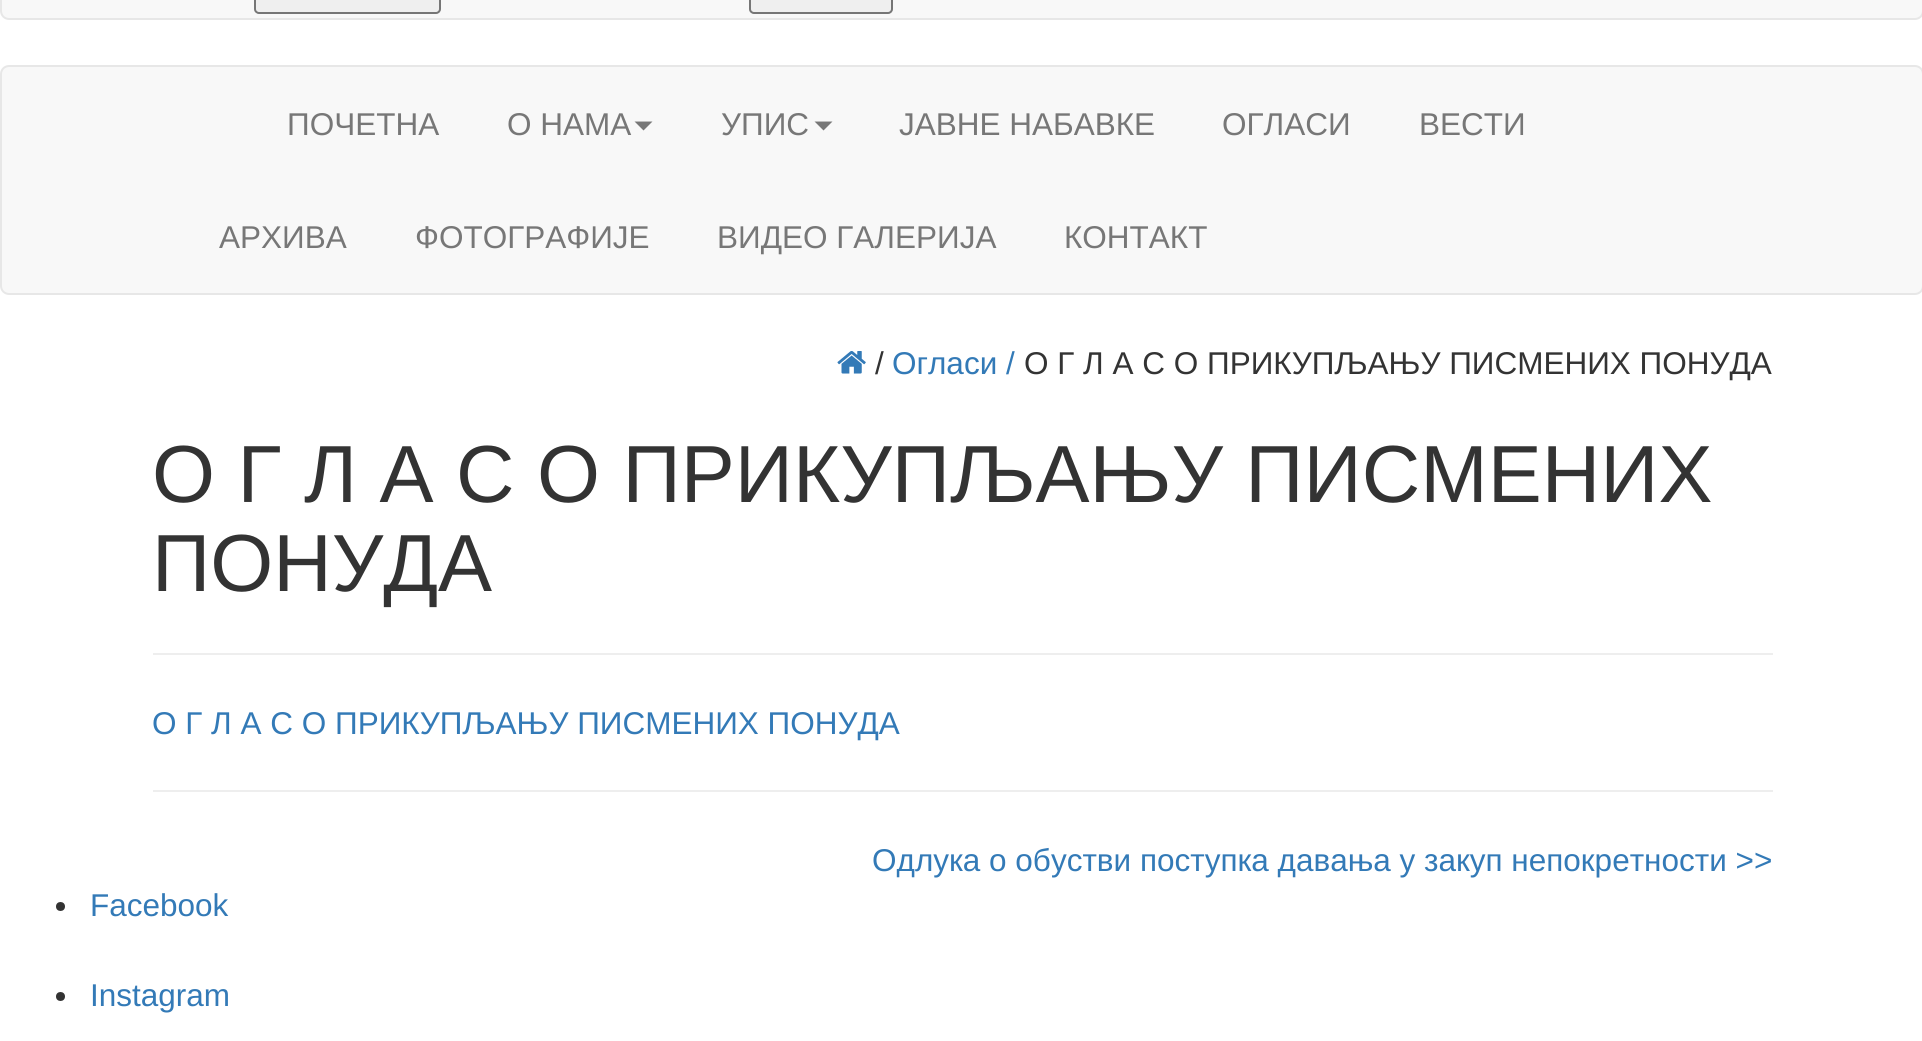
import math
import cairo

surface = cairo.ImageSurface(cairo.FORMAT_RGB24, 1922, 1041)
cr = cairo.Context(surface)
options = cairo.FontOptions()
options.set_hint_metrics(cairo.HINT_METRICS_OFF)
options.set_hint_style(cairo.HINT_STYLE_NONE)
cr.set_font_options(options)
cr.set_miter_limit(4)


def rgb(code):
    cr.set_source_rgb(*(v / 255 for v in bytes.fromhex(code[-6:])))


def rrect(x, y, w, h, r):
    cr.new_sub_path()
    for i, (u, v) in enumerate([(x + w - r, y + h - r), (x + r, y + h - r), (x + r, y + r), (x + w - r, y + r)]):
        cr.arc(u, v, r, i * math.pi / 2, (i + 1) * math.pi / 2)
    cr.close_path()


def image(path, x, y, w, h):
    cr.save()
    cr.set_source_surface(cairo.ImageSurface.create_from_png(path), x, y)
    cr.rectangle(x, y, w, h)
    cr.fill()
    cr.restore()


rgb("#ffffff")
cr.paint()
rgb("#f8f8f8")
rrect(1, -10, 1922, 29, 8)
cr.fill_preserve()
rgb("#e7e7e7")
cr.stroke()
rgb("#efefef")
rrect(255, -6, 185, 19, 4)
cr.fill_preserve()
rgb("#767676")
cr.stroke()
rgb("#efefef")
rrect(750, -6, 142, 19, 4)
cr.fill_preserve()
rgb("#767676")
cr.stroke()
rgb("#f8f8f8")
rrect(1, 66, 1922, 228, 8)
cr.fill_preserve()
rgb("#e7e7e7")
cr.stroke()
rgb("#777777")
cr.new_path()
cr.move_to(634.5, 121.5)
cr.line_to(652.5, 121.5)
cr.line_to(643.5, 130.5)
cr.close_path()
cr.fill()
cr.new_path()
cr.move_to(814.5, 121.5)
cr.line_to(832.5, 121.5)
cr.line_to(823.5, 130.5)
cr.close_path()
cr.fill()
image("img/1.png", 837, 351, 29, 23)
rgb("#eeeeee")
cr.rectangle(153, 653, 1620, 2)
cr.fill()
cr.rectangle(153, 790, 1620, 2)
cr.fill()
rgb("#333333")
cr.arc(60.5, 906.5, 4.5, 0, 2 * math.pi)
cr.fill()
cr.arc(60.5, 996.5, 4.5, 0, 2 * math.pi)
cr.fill()
cr.select_font_face("Liberation Sans")
cr.set_font_size(31.5)
rgb("#777777")
for x, y, s in [
    (287, 135, "ПОЧЕТНА"),
    (507, 135, "О НАМА"),
    (721, 135, "УПИС"),
    (899, 135, "ЈАВНЕ НАБАВКЕ"),
    (1222, 135, "ОГЛАСИ"),
    (1419, 135, "ВЕСТИ"),
    (219, 248, "АРХИВА"),
    (415, 248, "ФОТОГРАФИЈЕ"),
    (717, 248, "ВИДЕО ГАЛЕРИЈА"),
    (1064, 248, "КОНТАКТ"),
]:
    cr.move_to(x, y)
    cr.show_text(s)
rgb("#333333")
cr.move_to(875, 374)
cr.show_text("/")
rgb("#337ab7")
cr.move_to(892, 374)
cr.show_text("Огласи /")
rgb("#333333")
cr.move_to(1024, 374)
cr.show_text("О Г Л А С О ПРИКУПЉАЊУ ПИСМЕНИХ ПОНУДА")
cr.set_font_size(81)
cr.move_to(152, 502)
cr.show_text("О Г Л А С О ПРИКУПЉАЊУ ПИСМЕНИХ")
cr.move_to(152, 591)
cr.show_text("ПОНУДА")
cr.set_font_size(31.5)
rgb("#337ab7")
for x, y, s in [
    (152, 734, "О Г Л А С О ПРИКУПЉАЊУ ПИСМЕНИХ ПОНУДА"),
    (872, 871, "Одлукa о обустви поступка давања у закуп непокретности >>"),
    (90, 916, "Facebook"),
    (90, 1006, "Instagram"),
]:
    cr.move_to(x, y)
    cr.show_text(s)
surface.write_to_png("page.png")
